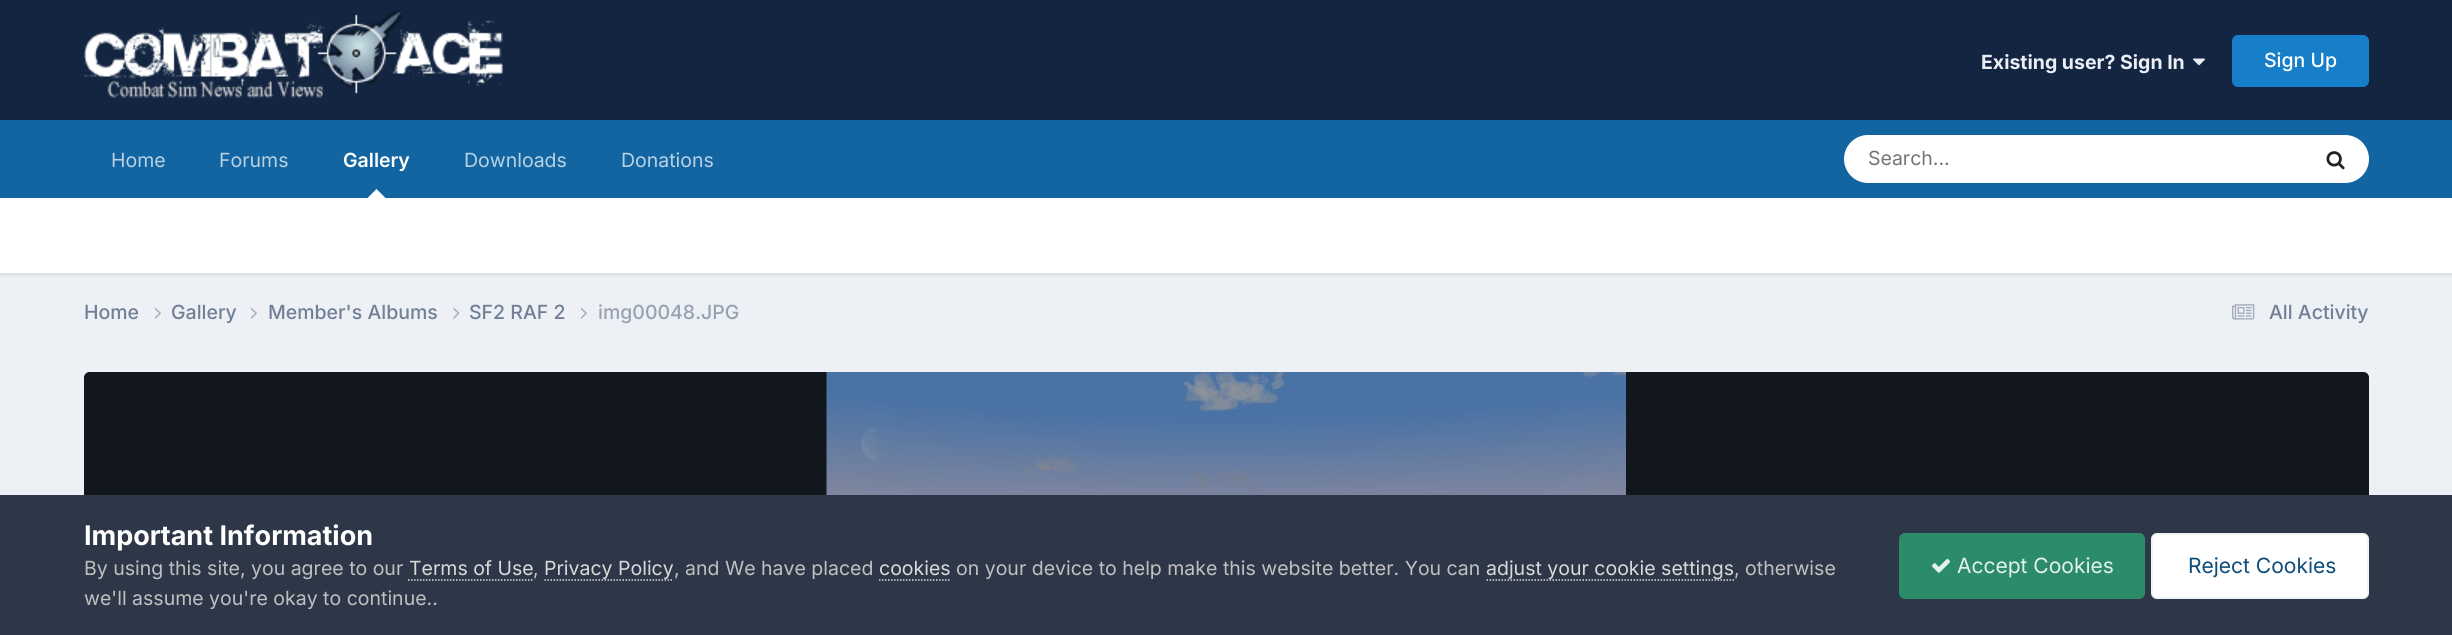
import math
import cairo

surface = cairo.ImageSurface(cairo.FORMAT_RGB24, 2452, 635)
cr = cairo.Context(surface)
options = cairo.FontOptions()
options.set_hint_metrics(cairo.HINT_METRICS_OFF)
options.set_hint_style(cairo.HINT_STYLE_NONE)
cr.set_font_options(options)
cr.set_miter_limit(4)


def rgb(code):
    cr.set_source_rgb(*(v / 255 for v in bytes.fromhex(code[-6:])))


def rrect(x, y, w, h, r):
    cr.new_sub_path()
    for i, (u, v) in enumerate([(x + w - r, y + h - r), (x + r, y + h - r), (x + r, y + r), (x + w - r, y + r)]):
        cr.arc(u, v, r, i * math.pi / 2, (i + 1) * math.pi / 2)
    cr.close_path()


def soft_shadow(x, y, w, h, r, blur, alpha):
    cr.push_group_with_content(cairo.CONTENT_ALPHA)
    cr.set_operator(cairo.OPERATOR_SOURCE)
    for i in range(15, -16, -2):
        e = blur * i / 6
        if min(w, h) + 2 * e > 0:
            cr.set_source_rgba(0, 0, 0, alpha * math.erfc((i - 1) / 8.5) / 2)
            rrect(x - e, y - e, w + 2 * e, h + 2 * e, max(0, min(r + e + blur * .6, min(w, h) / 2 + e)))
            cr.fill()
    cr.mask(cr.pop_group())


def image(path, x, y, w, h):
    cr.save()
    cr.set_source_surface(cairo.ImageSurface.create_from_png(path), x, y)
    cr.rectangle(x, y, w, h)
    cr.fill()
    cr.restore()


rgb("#edf0f4")
cr.paint()
rgb("#132541")
cr.rectangle(0, 0, 2452, 120)
cr.fill()
image("img/1.png", 84, 9, 419, 89)
image("img/2.png", 2193, 58, 12, 8)
rgb("#177ec9")
rrect(2232, 35, 137, 52, 6)
cr.fill()
rgb("#1265a1")
cr.rectangle(0, 120, 2452, 78)
cr.fill()
rgb("#000000")
soft_shadow(0, 200, 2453, 75, 0, 1.5, 0.1)
rgb("#ffffff")
cr.new_path()
cr.move_to(385.5, 198)
cr.line_to(367.5, 198)
cr.line_to(376.5, 189)
cr.close_path()
cr.fill()
rrect(1844, 135, 525, 48, 24)
cr.fill()
image("img/3.png", 2326, 151, 19, 19)
cr.rectangle(0, 198, 2452, 75)
cr.fill()
image("img/4.png", 154, 307, 7, 12)
image("img/4.png", 250, 307, 7, 12)
image("img/5.png", 453, 308, 7, 11)
image("img/4.png", 580, 307, 7, 12)
image("img/6.png", 2232, 304, 23, 16)
rgb("#2d3748")
cr.new_path()
cr.move_to(90, 372)
cr.line_to(2363, 372)
cr.curve_to(2366.5, 372, 2369, 374.5, 2369, 378)
cr.line_to(2369, 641)
cr.line_to(84, 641)
cr.line_to(84, 378)
cr.curve_to(84, 374.5, 86.5, 372, 90, 372)
cr.close_path()
cr.fill()
cr.set_source_rgba(0, 0, 0, 0.6)
cr.new_path()
cr.move_to(90, 372)
cr.line_to(2363, 372)
cr.curve_to(2366.5, 372, 2369, 374.5, 2369, 378)
cr.line_to(2369, 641)
cr.line_to(84, 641)
cr.line_to(84, 378)
cr.curve_to(84, 374.5, 86.5, 372, 90, 372)
cr.close_path()
cr.fill()
image("img/7.png", 826, 372, 800, 123)
rgb("#2d3748")
cr.rectangle(0, 495, 2452, 140)
cr.fill()
cr.new_path()
cr.move_to(408, 580)
cr.line_to(534, 580)
rgb("#dadada")
cr.set_line_width(1.5)
cr.set_dash([1.5, 1.5])
cr.stroke()
cr.new_path()
cr.move_to(544.5, 580)
cr.line_to(673.5, 580)
cr.stroke()
cr.new_path()
cr.move_to(879, 580)
cr.line_to(951, 580)
cr.stroke()
cr.new_path()
cr.move_to(1486.5, 580)
cr.line_to(1734, 580)
cr.stroke()
rgb("#2c8c69")
rrect(1899, 533, 246, 66, 6)
cr.fill()
image("img/8.png", 1931, 558, 20, 15)
rgb("#ffffff")
rrect(2151, 533, 218, 66, 6)
cr.fill()
rrect(2152, 534, 216, 64, 5)
cr.set_source_rgba(0.055, 0.298, 0.475, 0.07)
cr.set_line_width(2)
cr.set_dash([])
cr.stroke()
cr.select_font_face("Inter", cairo.FONT_SLANT_NORMAL, cairo.FONT_WEIGHT_BOLD)
cr.set_font_size(19.5)
rgb("#ebeff5")
cr.move_to(1981, 69)
cr.show_text("Existing user? Sign In")
cr.select_font_face("Inter Medium")
rgb("#ffffff")
cr.move_to(2264, 67)
cr.show_text("Sign Up")
cr.select_font_face("Inter")
rgb("#b8d1e3")
cr.move_to(111, 167)
cr.show_text("Home")
cr.move_to(219, 167)
cr.show_text("Forums")
cr.select_font_face("Inter SemiBold")
rgb("#ffffff")
cr.move_to(343, 167)
cr.show_text("Gallery")
cr.select_font_face("Inter")
rgb("#b8d1e3")
cr.move_to(464, 167)
cr.show_text("Downloads")
cr.move_to(621, 167)
cr.show_text("Donations")
rgb("#757575")
cr.move_to(1868, 165)
cr.show_text("Search...")
cr.select_font_face("Inter Medium")
rgb("#718096")
for x, y, s in [
    (84, 319, "Home"),
    (171, 319, "Gallery"),
    (268, 319, "Member's Albums"),
    (469, 319, "SF2 RAF 2"),
]:
    cr.move_to(x, y)
    cr.show_text(s)
rgb("#96a2b2")
cr.move_to(598, 319)
cr.show_text("img00048.JPG")
rgb("#718096")
cr.move_to(2269, 319)
cr.show_text("All Activity")
cr.select_font_face("Inter", cairo.FONT_SLANT_NORMAL, cairo.FONT_WEIGHT_BOLD)
cr.set_font_size(27)
rgb("#ffffff")
cr.move_to(84, 545)
cr.show_text("Important Information")
cr.select_font_face("Inter")
cr.set_font_size(19.5)
rgb("#c0c0c0")
cr.move_to(84, 575)
cr.show_text("By using this site, you agree to our")
rgb("#dadada")
cr.move_to(409, 575)
cr.show_text("Terms of Use")
rgb("#c0c0c0")
cr.move_to(533, 575)
cr.show_text(",")
rgb("#dadada")
cr.move_to(544, 575)
cr.show_text("Privacy Policy")
rgb("#c0c0c0")
cr.move_to(674, 575)
cr.show_text(", and We have placed")
rgb("#dadada")
cr.move_to(879, 575)
cr.show_text("cookies")
rgb("#c0c0c0")
cr.move_to(956, 575)
cr.show_text("on your device to help make this website better. You can")
rgb("#dadada")
cr.move_to(1486, 575)
cr.show_text("adjust your cookie settings")
rgb("#c0c0c0")
cr.move_to(1734, 575)
cr.show_text(", otherwise")
cr.move_to(84, 605)
cr.show_text("we'll assume you're okay to continue..")
cr.set_font_size(21)
rgb("#e3f3ec")
cr.move_to(1957, 573)
cr.show_text("Accept Cookies")
rgb("#0e4c79")
cr.move_to(2188, 573)
cr.show_text("Reject Cookies")
surface.write_to_png("page.png")
